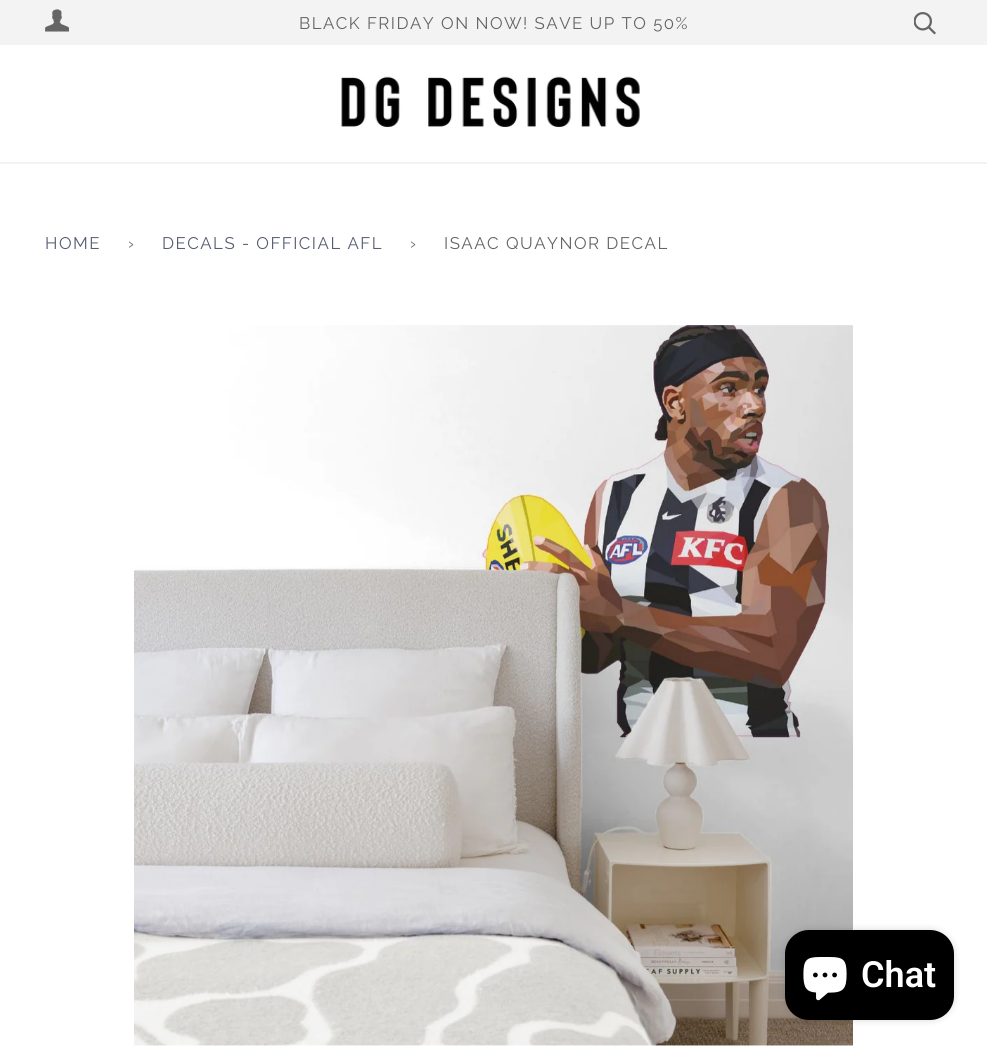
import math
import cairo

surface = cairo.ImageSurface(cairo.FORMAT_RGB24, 987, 1051)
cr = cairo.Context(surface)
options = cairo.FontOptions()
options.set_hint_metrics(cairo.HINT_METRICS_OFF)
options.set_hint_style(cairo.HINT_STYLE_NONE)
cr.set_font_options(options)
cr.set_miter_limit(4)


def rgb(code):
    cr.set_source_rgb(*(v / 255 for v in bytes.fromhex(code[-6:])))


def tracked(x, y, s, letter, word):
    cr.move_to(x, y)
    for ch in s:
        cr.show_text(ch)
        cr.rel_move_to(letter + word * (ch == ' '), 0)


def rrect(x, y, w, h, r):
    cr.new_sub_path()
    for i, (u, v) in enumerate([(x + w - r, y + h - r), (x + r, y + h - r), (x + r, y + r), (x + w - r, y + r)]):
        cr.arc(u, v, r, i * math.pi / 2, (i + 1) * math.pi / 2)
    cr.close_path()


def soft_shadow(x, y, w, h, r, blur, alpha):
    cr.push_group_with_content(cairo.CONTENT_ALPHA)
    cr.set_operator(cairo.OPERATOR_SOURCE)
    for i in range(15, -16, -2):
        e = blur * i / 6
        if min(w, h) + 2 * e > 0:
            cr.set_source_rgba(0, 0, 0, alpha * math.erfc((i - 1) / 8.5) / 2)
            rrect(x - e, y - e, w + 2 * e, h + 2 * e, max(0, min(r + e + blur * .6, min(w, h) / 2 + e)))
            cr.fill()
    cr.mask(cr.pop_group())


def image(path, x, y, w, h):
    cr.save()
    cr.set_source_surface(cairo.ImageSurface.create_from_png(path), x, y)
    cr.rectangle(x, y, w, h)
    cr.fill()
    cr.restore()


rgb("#ffffff")
cr.paint()
rgb("#f3f3f3")
cr.rectangle(0, 0, 987, 45)
cr.fill()
image("img/1.png", 45, 9, 24, 23)
image("img/2.png", 914, 12, 22, 23)
cr.rectangle(0, 162, 987, 2)
cr.fill()
image("img/3.png", 341, 76, 299, 52)
image("img/4.png", 134, 325, 719, 721)
rgb("#000000")
soft_shadow(785, 930, 169, 90, 24, 4, 0.15)
rgb("#000000")
rrect(785, 930, 169, 90, 24)
cr.fill()
image("img/5.png", 803, 957, 44, 44)
cr.select_font_face("Raleway")
cr.set_font_size(16.8)
rgb("#656565")
tracked(299, 29, "BLACK FRIDAY ON NOW! SAVE UP TO 50%", 1.5, 0)
rgb("#585e71")
tracked(45, 249, "HOME", 1.5, 0)
rgb("#656565")
tracked(128, 249, "›", 1.5, 0)
rgb("#585e71")
tracked(162, 249, "DECALS - OFFICIAL AFL", 1.5, 0)
rgb("#656565")
tracked(410, 249, "›", 1.5, 0)
tracked(444, 249, "ISAAC QUAYNOR DECAL", 1.5, 0)
cr.select_font_face("Roboto SemiBold")
cr.set_font_size(36)
rgb("#ffffff")
cr.move_to(861, 987)
cr.show_text("Chat")
surface.write_to_png("page.png")
